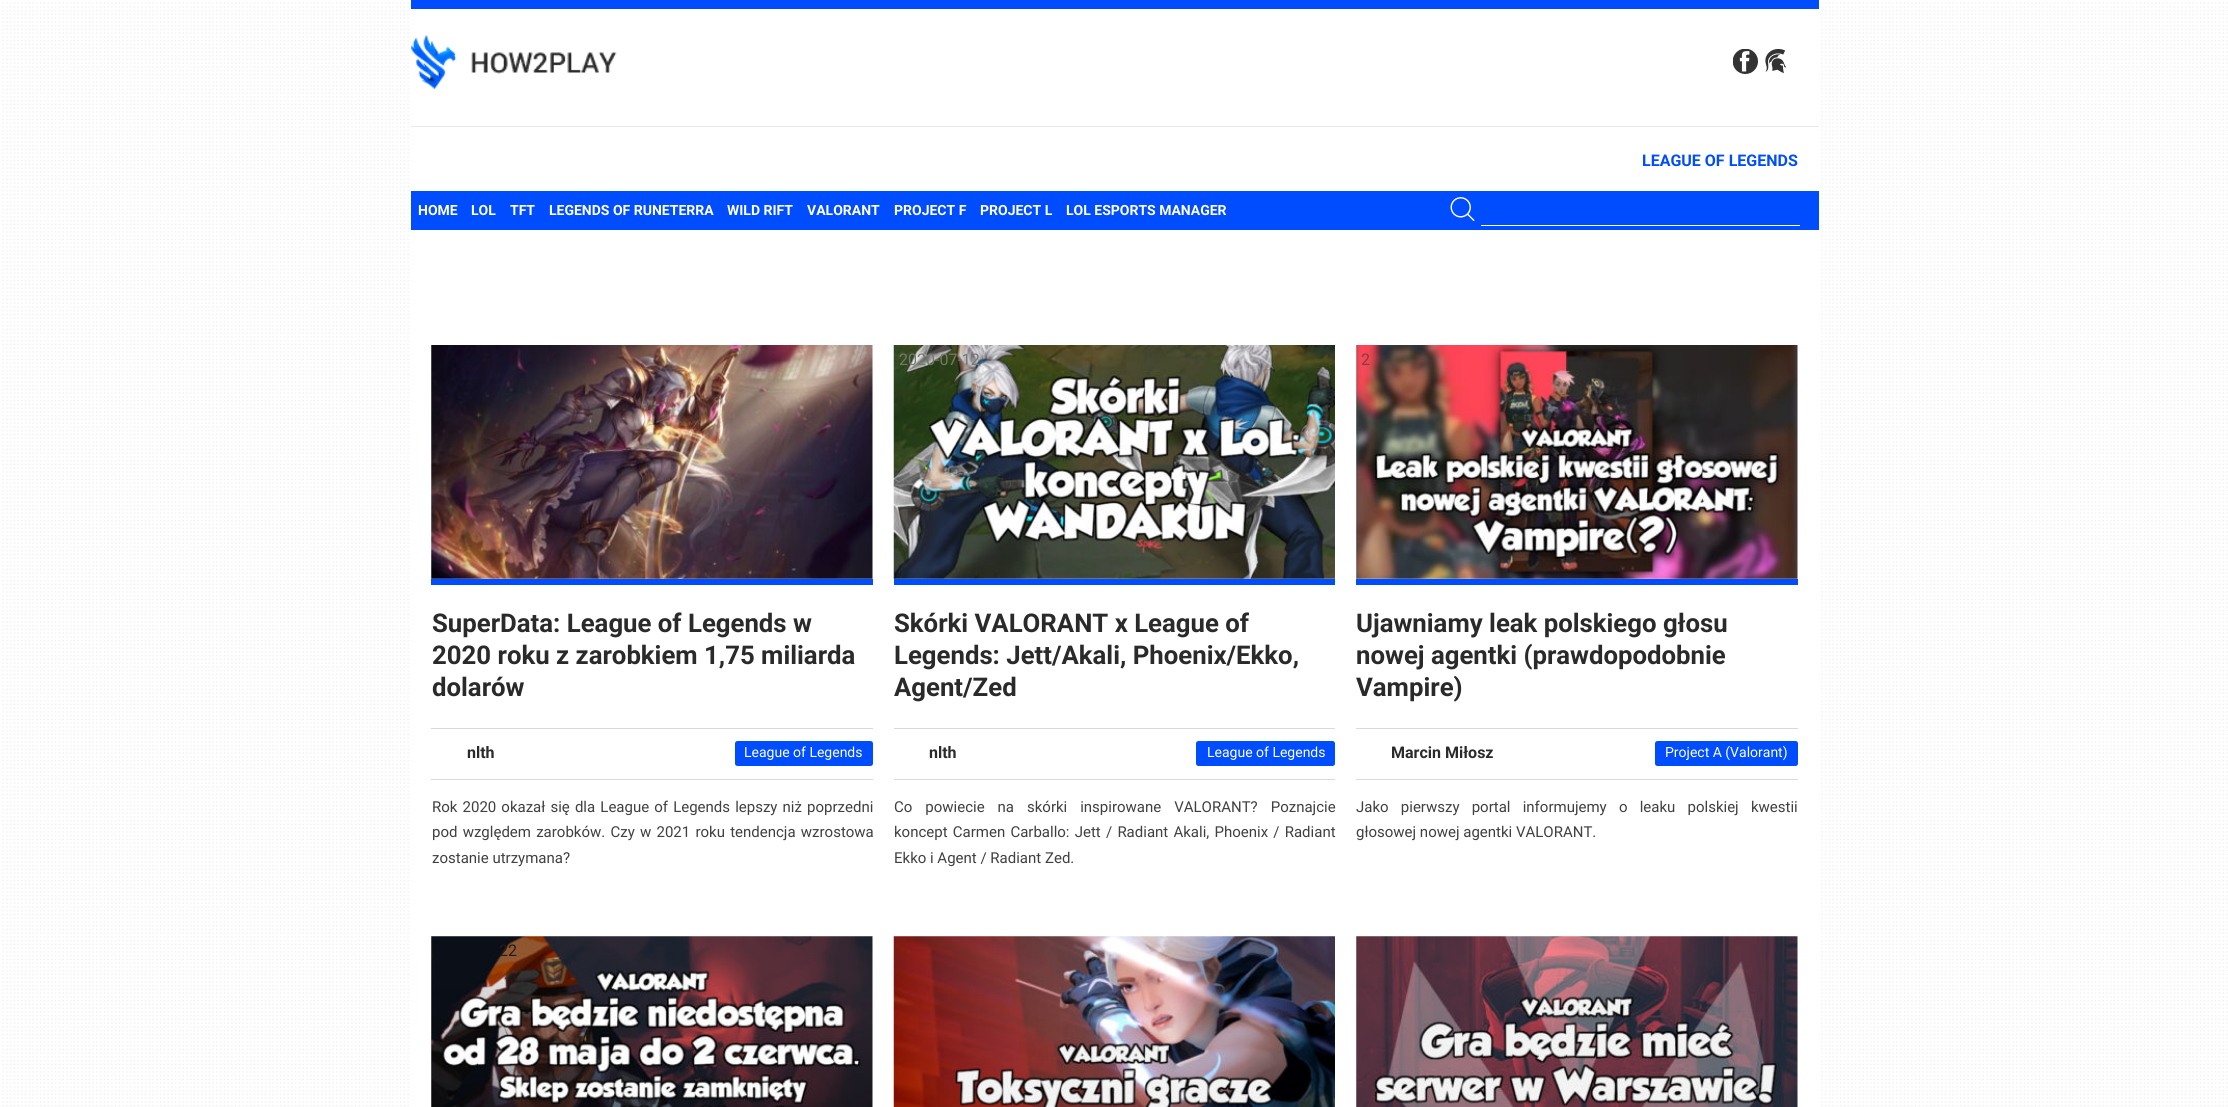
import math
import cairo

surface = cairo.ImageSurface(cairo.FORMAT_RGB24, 2228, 1107)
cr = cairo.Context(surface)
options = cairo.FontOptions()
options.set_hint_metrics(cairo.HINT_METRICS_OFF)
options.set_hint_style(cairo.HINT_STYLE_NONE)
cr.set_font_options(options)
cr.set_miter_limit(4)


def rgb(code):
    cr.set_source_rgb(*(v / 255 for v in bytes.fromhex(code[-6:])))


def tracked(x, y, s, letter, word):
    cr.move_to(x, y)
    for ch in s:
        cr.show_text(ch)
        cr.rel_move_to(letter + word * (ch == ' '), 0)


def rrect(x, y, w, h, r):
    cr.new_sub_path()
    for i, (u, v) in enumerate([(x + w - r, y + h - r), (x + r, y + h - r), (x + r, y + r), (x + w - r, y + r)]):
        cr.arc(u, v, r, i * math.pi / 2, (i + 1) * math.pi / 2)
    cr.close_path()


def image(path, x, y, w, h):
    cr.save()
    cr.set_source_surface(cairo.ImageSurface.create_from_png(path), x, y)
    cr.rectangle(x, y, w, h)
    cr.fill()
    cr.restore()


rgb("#ffffff")
cr.paint()
image("img/1.png", 2, 2, 2226, 1105)
rgb("#ffffff")
cr.rectangle(411, 10, 1408, 1097)
cr.fill()
rgb("#004dff")
cr.rectangle(411, 0, 1408, 9)
cr.fill()
image("img/2.png", 411, 35, 206, 54)
image("img/3.png", 1733, 49, 25, 25)
image("img/4.png", 1765, 49, 22, 25)
rgb("#e9e9e9")
cr.rectangle(411, 126, 1408, 1)
cr.fill()
rgb("#004dff")
cr.rectangle(411, 191, 1408, 39)
cr.fill()
image("img/5.png", 1450, 197, 25, 24)
rgb("#ffffff")
cr.rectangle(1481, 225, 319, 1)
cr.fill()
image("img/6.png", 431, 345, 442, 234)
for x, y, w, h, color in [
    (431, 579, 442, 6, "#004dff"),
    (431, 728, 442, 1, "#d9d9d9"),
    (431, 779, 442, 1, "#d9d9d9"),
]:
    rgb(color)
    cr.rectangle(x, y, w, h)
    cr.fill()
rgb("#004dff")
rrect(735, 741, 138, 25, 2.5)
cr.fill()
image("img/7.png", 893, 345, 442, 234)
for x, y, w, h, color in [
    (894, 579, 441, 6, "#004dff"),
    (894, 728, 441, 1, "#d9d9d9"),
    (894, 779, 441, 1, "#d9d9d9"),
]:
    rgb(color)
    cr.rectangle(x, y, w, h)
    cr.fill()
rgb("#004dff")
rrect(1196, 741, 139, 25, 2.5)
cr.fill()
image("img/8.png", 1356, 345, 442, 234)
for x, y, w, h, color in [
    (1356, 579, 442, 6, "#004dff"),
    (1356, 728, 442, 1, "#d9d9d9"),
    (1356, 779, 442, 1, "#d9d9d9"),
]:
    rgb(color)
    cr.rectangle(x, y, w, h)
    cr.fill()
rgb("#004dff")
rrect(1655, 741, 143, 25, 2.5)
cr.fill()
image("img/9.png", 431, 936, 442, 171)
image("img/10.png", 893, 936, 442, 171)
image("img/11.png", 1356, 936, 442, 171)
cr.select_font_face("Roboto", cairo.FONT_SLANT_NORMAL, cairo.FONT_WEIGHT_BOLD)
cr.set_font_size(16)
cr.move_to(1642, 166)
cr.show_text("LEAGUE OF LEGENDS")
cr.set_font_size(14)
rgb("#ffffff")
for x, y, s in [
    (418, 215, "HOME"),
    (471, 215, "LOL"),
    (510, 215, "TFT"),
    (549, 215, "LEGENDS OF RUNETERRA"),
    (727, 215, "WILD RIFT"),
    (807, 215, "VALORANT"),
    (894, 215, "PROJECT F"),
    (980, 215, "PROJECT L"),
    (1066, 215, "LOL ESPORTS MANAGER"),
]:
    cr.move_to(x, y)
    cr.show_text(s)
cr.set_font_size(25.75)
rgb("#2a2a2a")
for x, y, s in [
    (432, 632, "SuperData: League of Legends w"),
    (432, 664, "2020 roku z zarobkiem 1,75 miliarda"),
    (432, 696, "dolarów"),
]:
    cr.move_to(x, y)
    cr.show_text(s)
cr.set_font_size(16)
cr.move_to(467, 758)
cr.show_text("nlth")
cr.select_font_face("Roboto")
cr.set_font_size(14)
rgb("#ffffff")
cr.move_to(744, 757)
cr.show_text("League of Legends")
cr.set_font_size(15)
rgb("#404040")
tracked(432, 812, "Rok 2020 okazał się dla League of Legends lepszy niż poprzedni", 0, 1.4)
tracked(432, 837, "pod względem zarobków. Czy w 2021 roku tendencja wzrostowa", 0, 1.5)
cr.move_to(432, 863)
cr.show_text("zostanie utrzymana?")
cr.set_font_size(16)
rgb("#727a69")
cr.move_to(899, 365)
cr.show_text("2020-07-12")
cr.select_font_face("Roboto", cairo.FONT_SLANT_NORMAL, cairo.FONT_WEIGHT_BOLD)
cr.set_font_size(25.75)
rgb("#2a2a2a")
for x, y, s in [
    (894, 632, "Skórki VALORANT x League of"),
    (894, 664, "Legends: Jett/Akali, Phoenix/Ekko,"),
    (894, 696, "Agent/Zed"),
]:
    cr.move_to(x, y)
    cr.show_text(s)
cr.set_font_size(16)
cr.move_to(929, 758)
cr.show_text("nlth")
cr.select_font_face("Roboto")
cr.set_font_size(14)
rgb("#ffffff")
cr.move_to(1207, 757)
cr.show_text("League of Legends")
cr.set_font_size(15)
rgb("#404040")
tracked(894, 812, "Co powiecie na skórki inspirowane VALORANT? Poznajcie", 0, 9.25)
tracked(894, 837, "koncept Carmen Carballo: Jett / Radiant Akali, Phoenix / Radiant", 0, 1.5)
cr.move_to(894, 863)
cr.show_text("Ekko i Agent / Radiant Zed.")
cr.set_font_size(16)
rgb("#7c4240")
cr.move_to(1361, 365)
cr.show_text("2")
cr.select_font_face("Roboto", cairo.FONT_SLANT_NORMAL, cairo.FONT_WEIGHT_BOLD)
cr.set_font_size(25.75)
rgb("#2a2a2a")
for x, y, s in [
    (1356, 632, "Ujawniamy leak polskiego głosu"),
    (1356, 664, "nowej agentki (prawdopodobnie"),
    (1356, 696, "Vampire)"),
]:
    cr.move_to(x, y)
    cr.show_text(s)
cr.set_font_size(16)
cr.move_to(1391, 758)
cr.show_text("Marcin Miłosz")
cr.select_font_face("Roboto")
cr.set_font_size(14)
rgb("#ffffff")
cr.move_to(1665, 757)
cr.show_text("Project A (Valorant)")
cr.set_font_size(15)
rgb("#404040")
tracked(1356, 812, "Jako pierwszy portal informujemy o leaku polskiej kwestii", 0, 8.5)
cr.move_to(1356, 837)
cr.show_text("głosowej nowej agentki VALORANT.")
cr.set_font_size(16)
rgb("#221b1c")
cr.move_to(499, 956)
cr.show_text("22")
surface.write_to_png("page.png")
